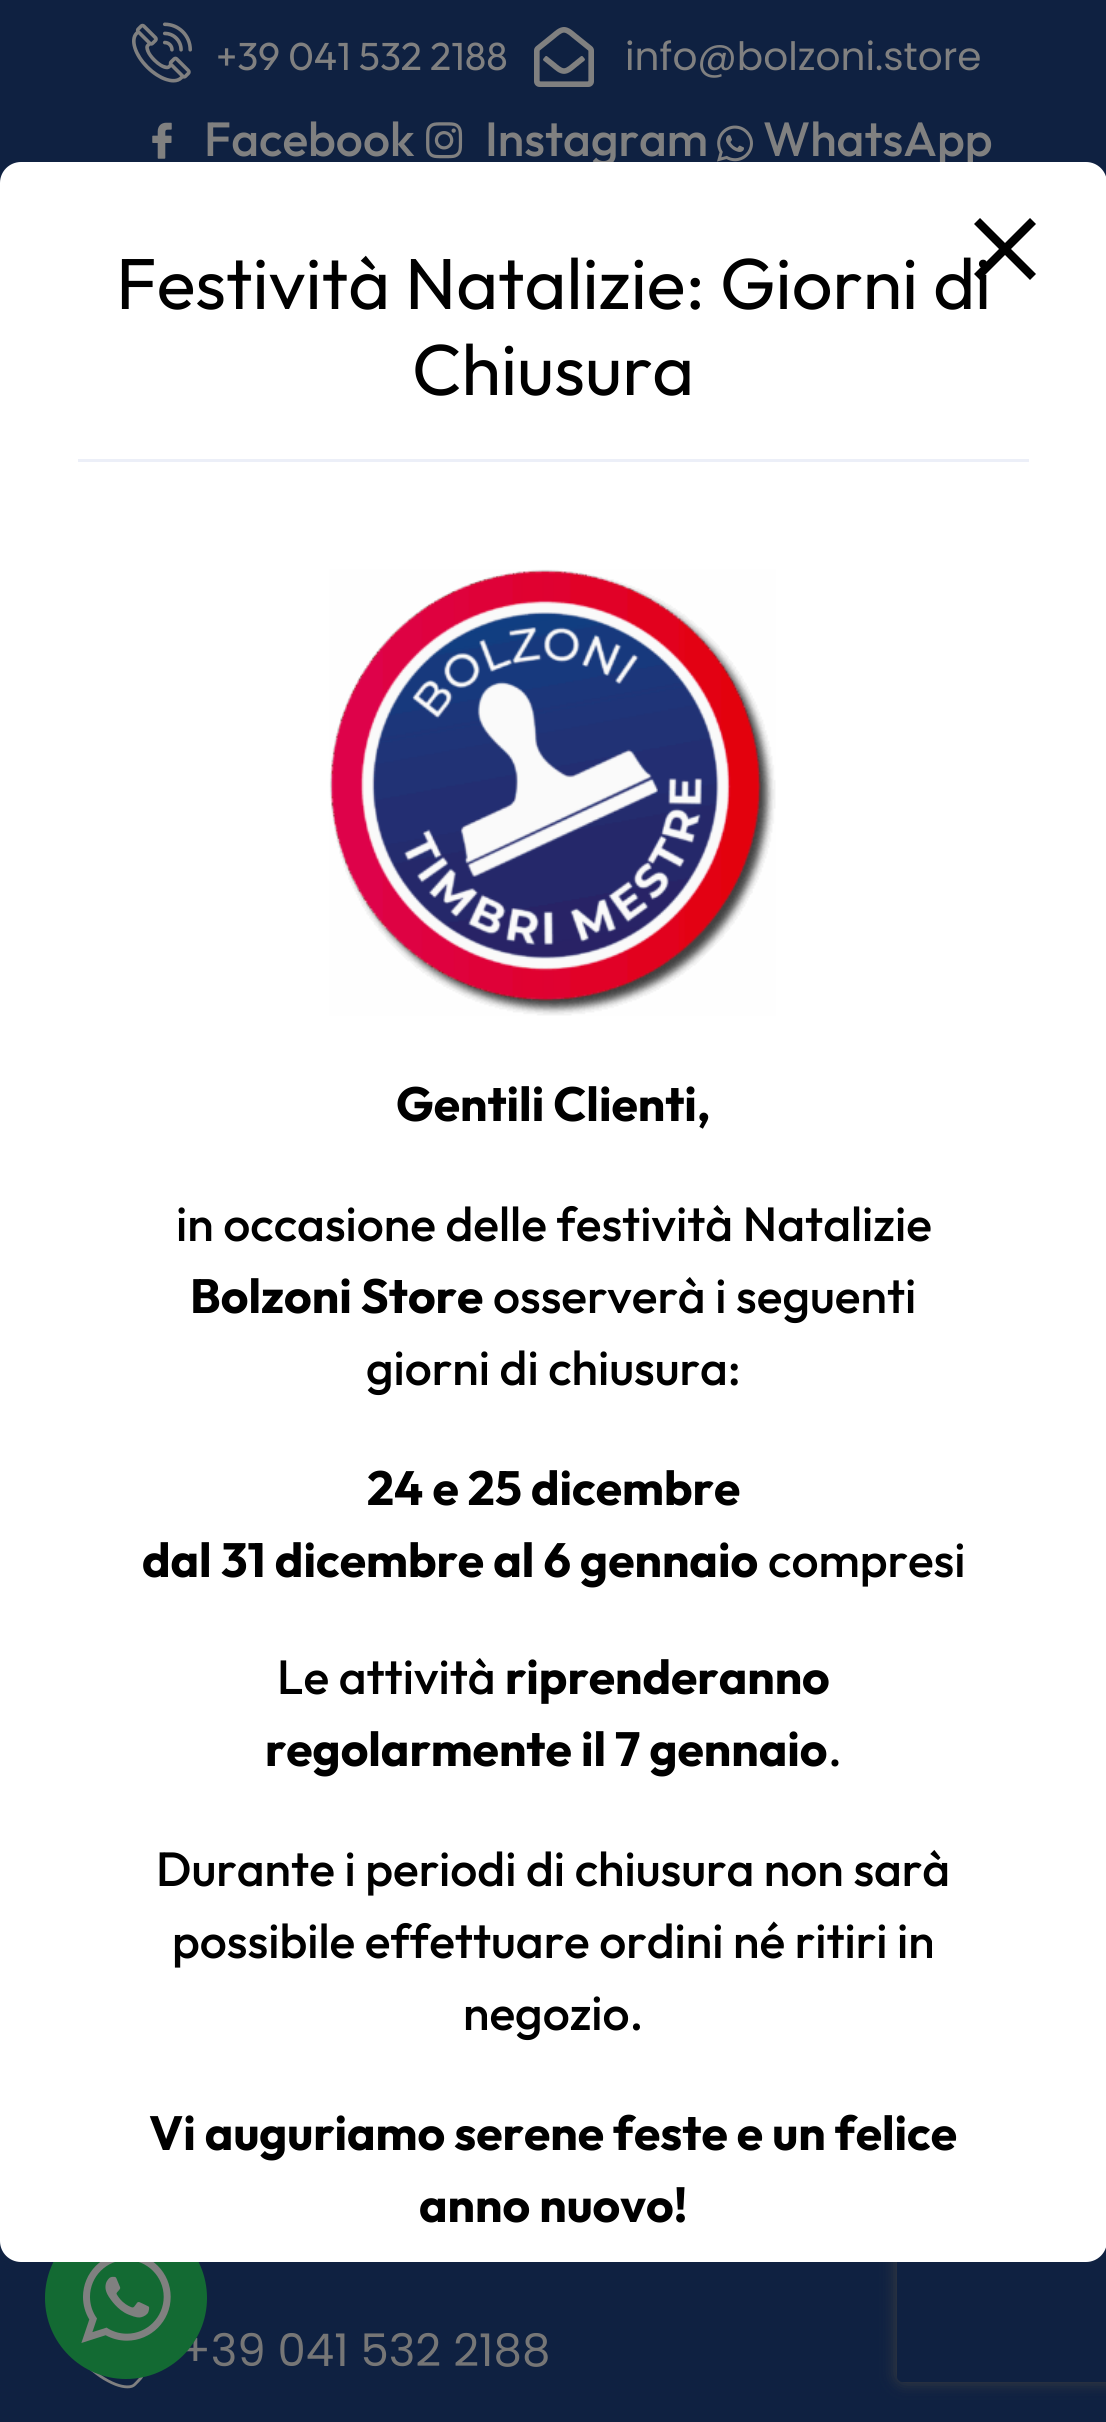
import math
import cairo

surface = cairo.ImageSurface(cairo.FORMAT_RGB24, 1106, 2422)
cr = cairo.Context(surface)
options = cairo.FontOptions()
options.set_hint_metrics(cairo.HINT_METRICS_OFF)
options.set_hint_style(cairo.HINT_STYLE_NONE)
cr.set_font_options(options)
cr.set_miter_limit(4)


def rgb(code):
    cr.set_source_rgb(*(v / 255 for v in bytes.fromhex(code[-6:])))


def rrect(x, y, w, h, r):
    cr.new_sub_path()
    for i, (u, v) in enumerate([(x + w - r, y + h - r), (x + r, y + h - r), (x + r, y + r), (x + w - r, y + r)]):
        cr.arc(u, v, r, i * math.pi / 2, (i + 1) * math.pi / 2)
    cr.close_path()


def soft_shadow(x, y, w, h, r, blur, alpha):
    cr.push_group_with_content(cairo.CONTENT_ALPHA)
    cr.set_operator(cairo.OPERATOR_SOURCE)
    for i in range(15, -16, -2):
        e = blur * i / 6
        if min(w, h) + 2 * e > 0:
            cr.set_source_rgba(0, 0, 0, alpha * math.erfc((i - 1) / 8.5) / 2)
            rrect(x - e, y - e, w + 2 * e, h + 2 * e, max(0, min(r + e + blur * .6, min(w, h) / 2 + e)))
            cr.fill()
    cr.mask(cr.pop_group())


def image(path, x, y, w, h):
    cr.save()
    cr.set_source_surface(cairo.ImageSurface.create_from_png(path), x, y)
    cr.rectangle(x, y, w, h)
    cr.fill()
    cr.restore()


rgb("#0f2141")
cr.paint()
image("img/1.png", 132, 22, 60, 61)
image("img/2.png", 534, 27, 60, 60)
image("img/3.png", 152, 122, 20, 37)
image("img/4.png", 426, 122, 37, 37)
image("img/5.png", 717, 125, 36, 37)
image("img/6.png", 90, 2370, 53, 19)
cr.save()
cr.set_fill_rule(cairo.FILL_RULE_EVEN_ODD)
cr.new_path()
cr.move_to(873, 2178)
cr.line_to(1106, 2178)
cr.line_to(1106, 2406)
cr.line_to(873, 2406)
cr.close_path()
cr.move_to(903, 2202)
cr.line_to(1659, 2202)
cr.curve_to(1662.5, 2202, 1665, 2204.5, 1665, 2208)
cr.line_to(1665, 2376)
cr.curve_to(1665, 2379.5, 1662.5, 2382, 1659, 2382)
cr.line_to(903, 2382)
cr.curve_to(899.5, 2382, 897, 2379.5, 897, 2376)
cr.line_to(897, 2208)
cr.curve_to(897, 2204.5, 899.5, 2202, 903, 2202)
cr.close_path()
cr.clip()
rgb("#404040")
soft_shadow(897, 2202, 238, 180, 6, 7.5, 1)
cr.restore()
cr.select_font_face("Outfit")
cr.set_font_size(39)
rgb("#808080")
cr.move_to(216, 70)
cr.show_text("+39 041 532 2188")
cr.select_font_face("Poppins")
cr.move_to(625, 70)
cr.show_text("info@bolzoni.store")
cr.select_font_face("Outfit Medium")
cr.set_font_size(48)
for x, y, s in [
    (204, 156, "Facebook"),
    (485, 156, "Instagram"),
    (763, 156, "WhatsApp"),
]:
    cr.move_to(x, y)
    cr.show_text(s)
cr.select_font_face("Poppins")
cr.set_font_size(45)
rgb("#767676")
cr.move_to(180, 2366)
cr.show_text("+39 041 532 2188")
rgb("#136a33")
cr.new_path()
cr.arc(126, 2298, 81, 0, 2 * math.pi)
cr.fill()
rgb("#ffffff")
rrect(1.5, 163.5, 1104, 2097, 19.5)
cr.fill_preserve()
cr.set_line_width(3)
cr.stroke()
rgb("#000000")
cr.new_path()
cr.move_to(1036, 224)
cr.line_to(1030, 218)
cr.line_to(1005, 243)
cr.line_to(980, 218)
cr.line_to(974, 224)
cr.line_to(999, 249)
cr.line_to(974, 274)
cr.line_to(980, 280)
cr.line_to(1005, 255)
cr.line_to(1030, 280)
cr.line_to(1036, 274)
cr.line_to(1011, 249)
cr.close_path()
cr.fill()
cr.select_font_face("Outfit", cairo.FONT_SLANT_NORMAL, cairo.FONT_WEIGHT_BOLD)
cr.set_font_size(48)
cr.move_to(419, 2222)
cr.show_text("anno nuovo!")
cr.move_to(149, 2150)
cr.show_text("Vi auguriamo serene feste e un felice")
cr.select_font_face("Outfit Medium")
for x, y, s in [
    (463, 2030, "negozio."),
    (172, 1958, "possibile effettuare ordini né ritiri in"),
    (156, 1886, "Durante i periodi di chiusura non sarà"),
    (828, 1766, "."),
]:
    cr.move_to(x, y)
    cr.show_text(s)
cr.select_font_face("Outfit", cairo.FONT_SLANT_NORMAL, cairo.FONT_WEIGHT_BOLD)
cr.move_to(265, 1766)
cr.show_text("regolarmente il 7 gennaio")
cr.move_to(505, 1694)
cr.show_text("riprenderanno")
cr.select_font_face("Outfit Medium")
cr.move_to(277, 1694)
cr.show_text("Le attività")
cr.move_to(768, 1577)
cr.show_text("compresi")
cr.select_font_face("Outfit", cairo.FONT_SLANT_NORMAL, cairo.FONT_WEIGHT_BOLD)
cr.move_to(142, 1577)
cr.show_text("dal 31 dicembre al 6 gennaio")
cr.move_to(367, 1505)
cr.show_text("24 e 25 dicembre")
cr.select_font_face("Outfit Medium")
cr.move_to(366, 1385)
cr.show_text("giorni di chiusura:")
cr.move_to(493, 1313)
cr.show_text("osserverà i seguenti")
cr.select_font_face("Outfit", cairo.FONT_SLANT_NORMAL, cairo.FONT_WEIGHT_BOLD)
cr.move_to(190, 1313)
cr.show_text("Bolzoni Store")
cr.select_font_face("Outfit Medium")
cr.move_to(176, 1241)
cr.show_text("in occasione delle festività Natalizie")
cr.select_font_face("Outfit", cairo.FONT_SLANT_NORMAL, cairo.FONT_WEIGHT_BOLD)
cr.move_to(396, 1121)
cr.show_text("Gentili Clienti,")
image("img/7.png", 329, 569, 447, 447)
cr.select_font_face("Outfit")
cr.set_font_size(72)
cr.move_to(412, 395)
cr.show_text("Chiusura")
cr.move_to(116, 309)
cr.show_text("Festività Natalizie: Giorni di")
rgb("#eceff8")
cr.rectangle(78, 459, 951, 3)
cr.fill()
image("img/8.png", 81, 2262, 90, 81)
surface.write_to_png("page.png")
